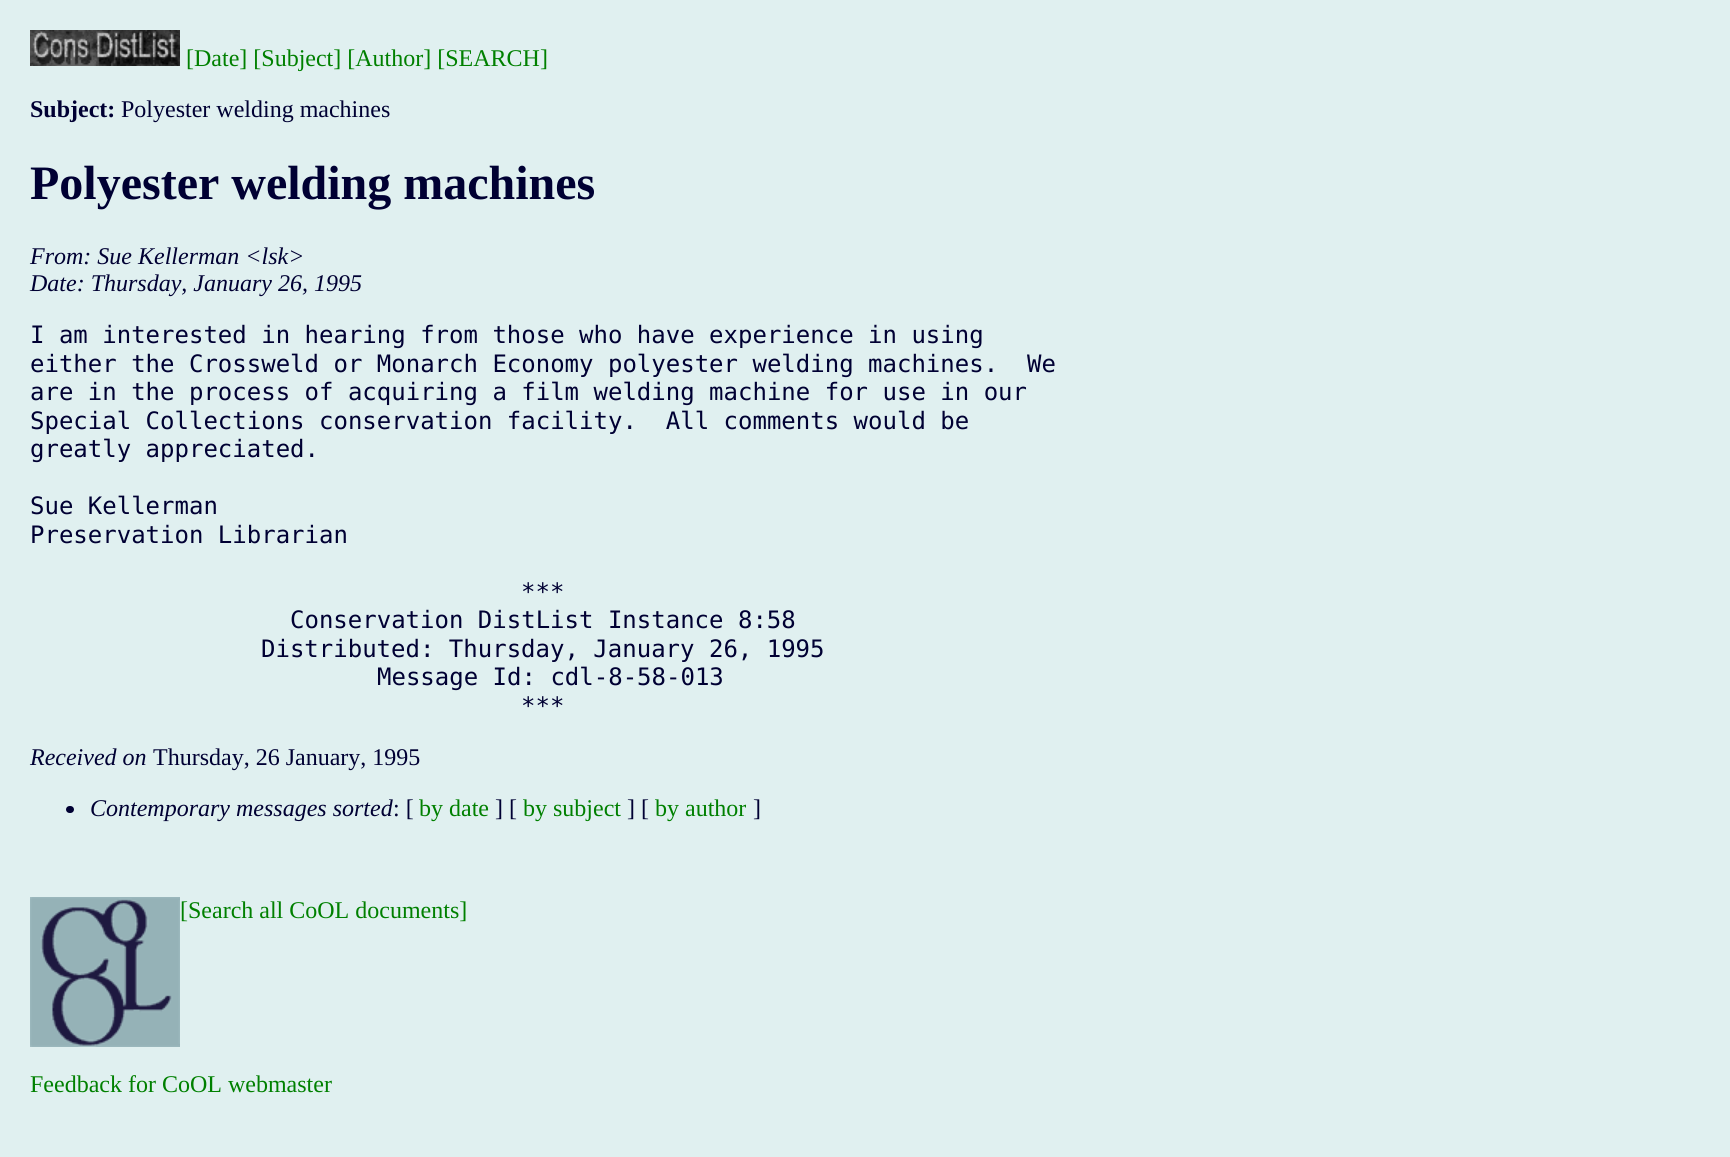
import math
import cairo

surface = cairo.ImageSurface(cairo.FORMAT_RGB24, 1730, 1157)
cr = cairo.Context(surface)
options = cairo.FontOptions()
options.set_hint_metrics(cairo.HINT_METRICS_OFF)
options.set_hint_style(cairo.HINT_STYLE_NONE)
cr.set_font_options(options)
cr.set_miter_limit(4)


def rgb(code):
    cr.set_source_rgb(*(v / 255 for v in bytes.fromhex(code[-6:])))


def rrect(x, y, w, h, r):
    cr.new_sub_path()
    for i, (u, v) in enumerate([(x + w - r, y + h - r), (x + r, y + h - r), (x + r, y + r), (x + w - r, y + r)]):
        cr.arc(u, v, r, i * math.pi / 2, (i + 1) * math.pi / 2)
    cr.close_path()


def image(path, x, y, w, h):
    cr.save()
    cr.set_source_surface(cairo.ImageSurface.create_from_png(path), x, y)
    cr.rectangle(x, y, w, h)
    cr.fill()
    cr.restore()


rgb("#e0f0f0")
cr.paint()
image("img/1.png", 30, 30, 150, 36)
rgb("#000033")
rrect(66, 806, 8, 7, 3.5)
cr.fill()
image("img/2.png", 30, 897, 150, 150)
cr.select_font_face("Liberation Serif")
cr.set_font_size(24)
rgb("#008000")
cr.move_to(186, 66)
cr.show_text("[Date] [Subject] [Author] [SEARCH]")
cr.select_font_face("Liberation Serif", cairo.FONT_SLANT_NORMAL, cairo.FONT_WEIGHT_BOLD)
rgb("#000033")
cr.move_to(30, 117)
cr.show_text("Subject:")
cr.select_font_face("Liberation Serif")
cr.move_to(121, 117)
cr.show_text("Polyester welding machines")
cr.select_font_face("Liberation Serif", cairo.FONT_SLANT_NORMAL, cairo.FONT_WEIGHT_BOLD)
cr.set_font_size(48)
cr.move_to(30, 199)
cr.show_text("Polyester welding machines")
cr.select_font_face("Liberation Serif", cairo.FONT_SLANT_ITALIC)
cr.set_font_size(24)
cr.move_to(30, 264)
cr.show_text("From: Sue Kellerman <lsk>")
cr.move_to(30, 291)
cr.show_text("Date: Thursday, January 26, 1995")
cr.select_font_face("DejaVu Sans Mono")
for x, y, s in [
    (30, 343, "I am interested in hearing from those who have experience in using"),
    (30, 372, "either the Crossweld or Monarch Economy polyester welding machines.  We"),
    (30, 400, "are in the process of acquiring a film welding machine for use in our"),
    (30, 429, "Special Collections conservation facility.  All comments would be"),
    (30, 457, "greatly appreciated."),
    (30, 514, "Sue Kellerman"),
    (30, 543, "Preservation Librarian"),
    (521, 600, "***"),
    (290, 628, "Conservation DistList Instance 8:58"),
    (261, 657, "Distributed: Thursday, January 26, 1995"),
    (377, 685, "Message Id: cdl-8-58-013"),
    (521, 714, "***"),
]:
    cr.move_to(x, y)
    cr.show_text(s)
cr.select_font_face("Liberation Serif", cairo.FONT_SLANT_ITALIC)
cr.move_to(30, 765)
cr.show_text("Received on")
cr.select_font_face("Liberation Serif")
cr.move_to(153, 765)
cr.show_text("Thursday, 26 January, 1995")
cr.select_font_face("Liberation Serif", cairo.FONT_SLANT_ITALIC)
cr.move_to(90, 816)
cr.show_text("Contemporary messages sorted")
cr.select_font_face("Liberation Serif")
cr.move_to(393, 816)
cr.show_text(": [")
rgb("#008000")
cr.move_to(419, 816)
cr.show_text("by date")
rgb("#000033")
cr.move_to(495, 816)
cr.show_text("] [")
rgb("#008000")
cr.move_to(523, 816)
cr.show_text("by subject")
rgb("#000033")
cr.move_to(627, 816)
cr.show_text("] [")
rgb("#008000")
cr.move_to(655, 816)
cr.show_text("by author")
rgb("#000033")
cr.move_to(753, 816)
cr.show_text("]")
rgb("#008000")
cr.move_to(180, 918)
cr.show_text("[Search all CoOL documents]")
cr.move_to(30, 1092)
cr.show_text("Feedback for CoOL webmaster")
surface.write_to_png("page.png")
